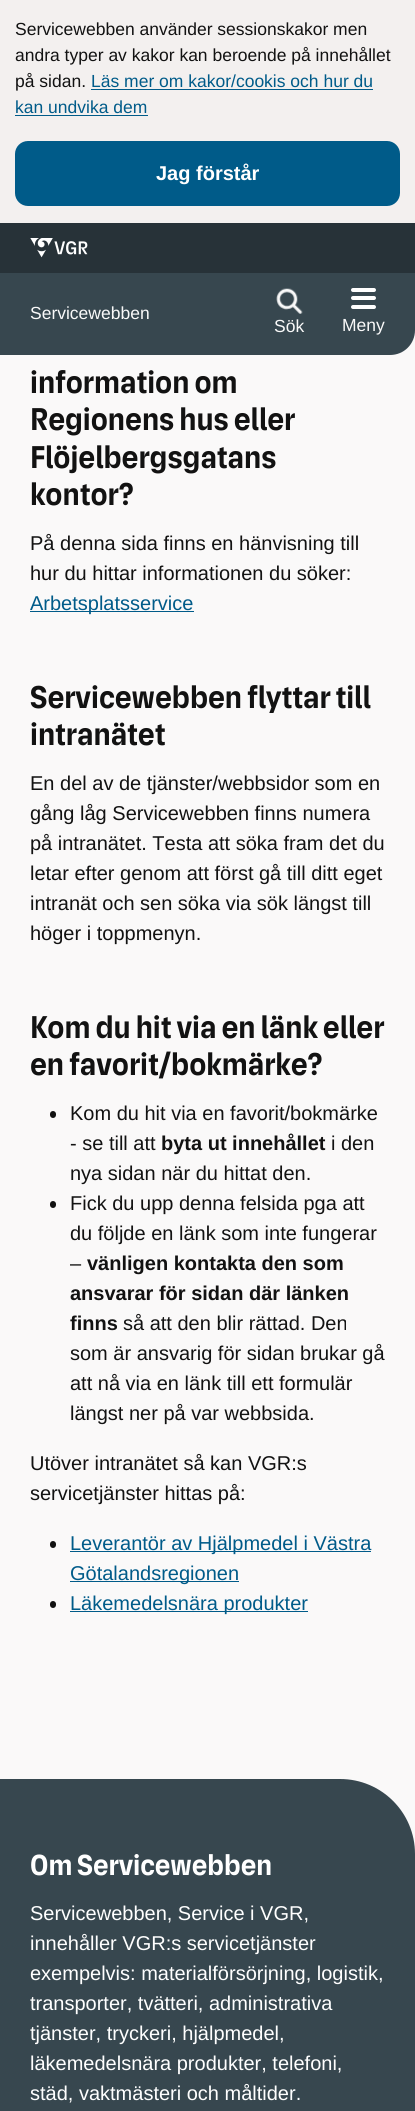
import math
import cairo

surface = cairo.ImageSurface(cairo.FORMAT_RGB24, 415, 2111)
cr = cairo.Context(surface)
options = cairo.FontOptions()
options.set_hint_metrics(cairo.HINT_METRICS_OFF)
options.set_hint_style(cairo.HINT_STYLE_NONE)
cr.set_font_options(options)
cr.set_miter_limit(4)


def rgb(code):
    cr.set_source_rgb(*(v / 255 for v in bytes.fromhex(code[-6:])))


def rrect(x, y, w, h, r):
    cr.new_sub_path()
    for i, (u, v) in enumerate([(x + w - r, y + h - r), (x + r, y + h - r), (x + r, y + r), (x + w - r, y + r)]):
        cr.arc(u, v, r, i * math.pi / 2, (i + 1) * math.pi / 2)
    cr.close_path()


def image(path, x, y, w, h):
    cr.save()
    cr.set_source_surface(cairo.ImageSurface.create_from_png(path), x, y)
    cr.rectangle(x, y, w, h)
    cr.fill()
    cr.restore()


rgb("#faf9f9")
cr.paint()
for x, y, w, h, color in [
    (0, 0, 415, 223, "#f3f0ef"),
    (91, 89, 282, 1, "#005b89"),
    (15, 115, 133, 1, "#005b89"),
]:
    rgb(color)
    cr.rectangle(x, y, w, h)
    cr.fill()
rrect(16.5, 142.5, 382, 62, 11.5)
cr.fill_preserve()
cr.set_line_width(3)
cr.stroke()
rgb("#273238")
cr.rectangle(0, 223, 415, 50)
cr.fill()
image("img/1.png", 30, 238, 58, 20)
rgb("#37474f")
cr.new_path()
cr.move_to(0, 273)
cr.line_to(415, 273)
cr.line_to(415, 330)
cr.curve_to(415, 344, 404, 355, 390, 355)
cr.line_to(0, 355)
cr.close_path()
cr.fill()
image("img/2.png", 276, 288, 27, 26)
rgb("#ffffff")
rrect(351, 288, 25, 4, 2)
cr.fill()
rrect(351, 296, 25, 4, 2)
cr.fill()
rrect(351, 305, 25, 4, 2)
cr.fill()
rgb("#005b89")
cr.rectangle(30, 611, 164, 1)
cr.fill()
rgb("#121212")
rrect(50, 1111, 6, 7, 3)
cr.fill()
rrect(50, 1201, 6, 7, 3)
cr.fill()
rrect(50, 1541, 6, 7, 3)
cr.fill()
rgb("#005b89")
cr.rectangle(70, 1551, 301, 1)
cr.fill()
cr.rectangle(70, 1581, 169, 1)
cr.fill()
rgb("#121212")
rrect(50, 1601, 6, 7, 3)
cr.fill()
rgb("#005b89")
cr.rectangle(70, 1611, 238, 1)
cr.fill()
rgb("#37474f")
cr.new_path()
cr.move_to(0, 1779)
cr.line_to(340, 1779)
cr.curve_to(381.5, 1779, 415, 1812.5, 415, 1854)
cr.line_to(415, 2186)
cr.line_to(0, 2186)
cr.close_path()
cr.fill()
cr.select_font_face("Liberation Sans")
cr.set_font_size(17.5)
rgb("#121212")
for x, y, s in [
    (15, 35, "Servicewebben använder sessionskakor men"),
    (15, 61, "andra typer av kakor kan beroende på innehållet"),
    (15, 87, "på sidan."),
]:
    cr.move_to(x, y)
    cr.show_text(s)
rgb("#005b89")
cr.move_to(91, 87)
cr.show_text("Läs mer om kakor/cookis och hur du")
cr.move_to(15, 113)
cr.show_text("kan undvika dem")
cr.select_font_face("Liberation Sans", cairo.FONT_SLANT_NORMAL, cairo.FONT_WEIGHT_BOLD)
cr.set_font_size(20)
rgb("#ffffff")
cr.move_to(156, 180)
cr.show_text("Jag förstår")
cr.select_font_face("Liberation Sans")
cr.set_font_size(17.5)
rgb("#f9f9f9")
for x, y, s in [
    (30, 319, "Servicewebben"),
    (274, 332, "Sök"),
    (342, 331, "Meny"),
]:
    cr.move_to(x, y)
    cr.show_text(s)
cr.select_font_face("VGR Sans", cairo.FONT_SLANT_NORMAL, cairo.FONT_WEIGHT_BOLD)
cr.set_font_size(31.25)
rgb("#121212")
for x, y, s in [
    (30, 393, "information om"),
    (30, 430, "Regionens hus eller"),
    (30, 468, "Flöjelbergsgatans"),
    (30, 505, "kontor?"),
]:
    cr.move_to(x, y)
    cr.show_text(s)
cr.select_font_face("Liberation Sans")
cr.set_font_size(20)
cr.move_to(30, 550)
cr.show_text("På denna sida finns en hänvisning till")
cr.move_to(30, 580)
cr.show_text("hur du hittar informationen du söker:")
rgb("#005b89")
cr.move_to(30, 610)
cr.show_text("Arbetsplatsservice")
cr.select_font_face("VGR Sans", cairo.FONT_SLANT_NORMAL, cairo.FONT_WEIGHT_BOLD)
cr.set_font_size(31.25)
rgb("#121212")
cr.move_to(30, 708)
cr.show_text("Servicewebben flyttar till")
cr.move_to(30, 745)
cr.show_text("intranätet")
cr.select_font_face("Liberation Sans")
cr.set_font_size(20)
for x, y, s in [
    (30, 790, "En del av de tjänster/webbsidor som en"),
    (30, 820, "gång låg Servicewebben finns numera"),
    (30, 850, "på intranätet. Testa att söka fram det du"),
    (30, 880, "letar efter genom att först gå till ditt eget"),
    (30, 910, "intranät och sen söka via sök längst till"),
    (30, 940, "höger i toppmenyn."),
]:
    cr.move_to(x, y)
    cr.show_text(s)
cr.select_font_face("VGR Sans", cairo.FONT_SLANT_NORMAL, cairo.FONT_WEIGHT_BOLD)
cr.set_font_size(31.25)
cr.move_to(30, 1038)
cr.show_text("Kom du hit via en länk eller")
cr.move_to(30, 1075)
cr.show_text("en favorit/bokmärke?")
cr.select_font_face("Liberation Sans")
cr.set_font_size(20)
cr.move_to(70, 1120)
cr.show_text("Kom du hit via en favorit/bokmärke")
cr.move_to(70, 1150)
cr.show_text("- se till att")
cr.select_font_face("Liberation Sans", cairo.FONT_SLANT_NORMAL, cairo.FONT_WEIGHT_BOLD)
cr.move_to(161, 1150)
cr.show_text("byta ut innehållet")
cr.select_font_face("Liberation Sans")
for x, y, s in [
    (331, 1150, "i den"),
    (70, 1180, "nya sidan när du hittat den."),
    (70, 1210, "Fick du upp denna felsida pga att"),
    (70, 1240, "du följde en länk som inte fungerar"),
    (70, 1270, "–"),
]:
    cr.move_to(x, y)
    cr.show_text(s)
cr.select_font_face("Liberation Sans", cairo.FONT_SLANT_NORMAL, cairo.FONT_WEIGHT_BOLD)
for x, y, s in [
    (87, 1270, "vänligen kontakta den som"),
    (70, 1300, "ansvarar för sidan där länken"),
    (70, 1330, "finns"),
]:
    cr.move_to(x, y)
    cr.show_text(s)
cr.select_font_face("Liberation Sans")
for x, y, s in [
    (123, 1330, "så att den blir rättad. Den"),
    (70, 1360, "som är ansvarig för sidan brukar gå"),
    (70, 1390, "att nå via en länk till ett formulär"),
    (70, 1420, "längst ner på var webbsida."),
    (30, 1470, "Utöver intranätet så kan VGR:s"),
    (30, 1500, "servicetjänster hittas på:"),
]:
    cr.move_to(x, y)
    cr.show_text(s)
rgb("#005b89")
for x, y, s in [
    (70, 1550, "Leverantör av Hjälpmedel i Västra"),
    (70, 1580, "Götalandsregionen"),
    (70, 1610, "Läkemedelsnära produkter"),
]:
    cr.move_to(x, y)
    cr.show_text(s)
cr.select_font_face("VGR Sans", cairo.FONT_SLANT_NORMAL, cairo.FONT_WEIGHT_BOLD)
cr.set_font_size(28.75)
rgb("#ffffff")
cr.move_to(30, 1875)
cr.show_text("Om Servicewebben")
cr.select_font_face("Liberation Sans")
cr.set_font_size(20)
for x, y, s in [
    (30, 1920, "Servicewebben, Service i VGR,"),
    (30, 1950, "innehåller VGR:s servicetjänster"),
    (30, 1980, "exempelvis: materialförsörjning, logistik,"),
    (30, 2010, "transporter, tvätteri, administrativa"),
    (30, 2040, "tjänster, tryckeri, hjälpmedel,"),
    (30, 2070, "läkemedelsnära produkter, telefoni,"),
    (30, 2100, "städ, vaktmästeri och måltider."),
]:
    cr.move_to(x, y)
    cr.show_text(s)
surface.write_to_png("page.png")
